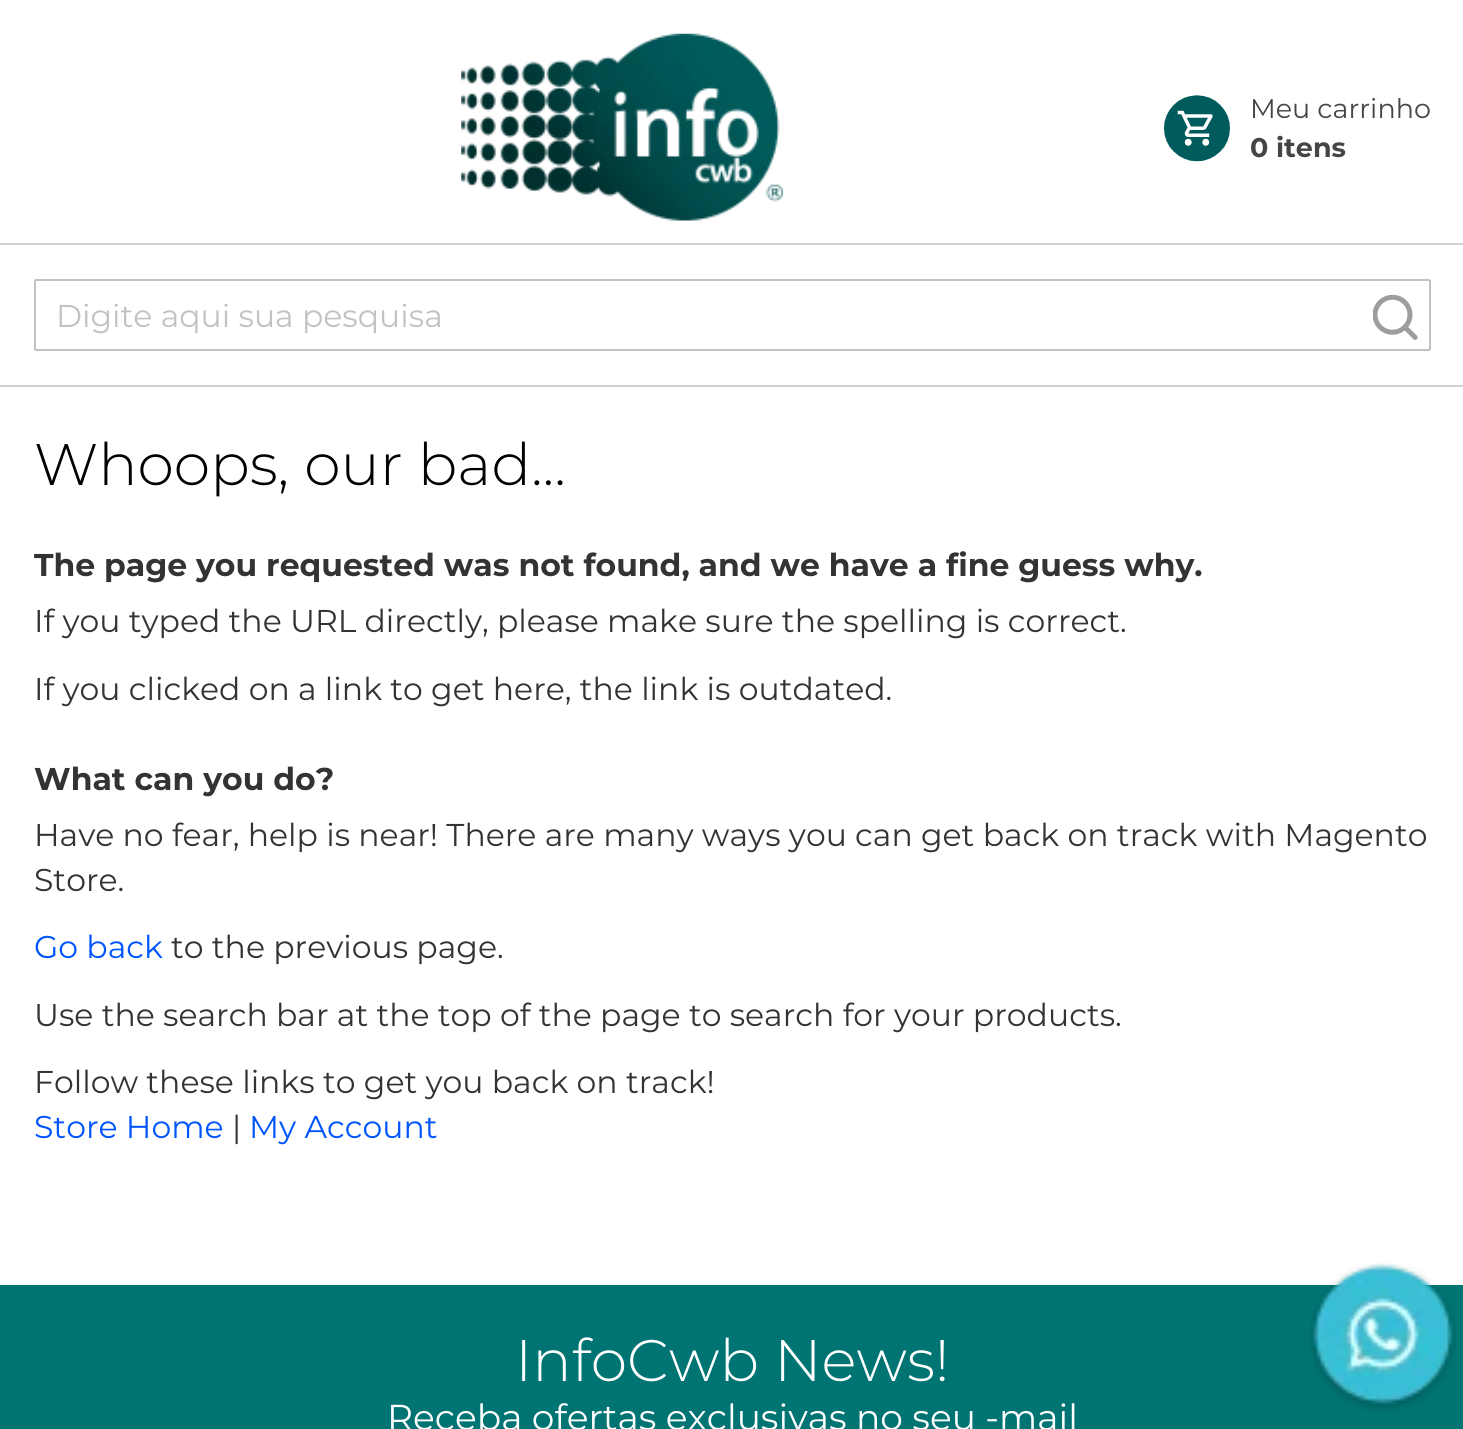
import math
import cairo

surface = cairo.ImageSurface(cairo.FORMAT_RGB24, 1463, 1429)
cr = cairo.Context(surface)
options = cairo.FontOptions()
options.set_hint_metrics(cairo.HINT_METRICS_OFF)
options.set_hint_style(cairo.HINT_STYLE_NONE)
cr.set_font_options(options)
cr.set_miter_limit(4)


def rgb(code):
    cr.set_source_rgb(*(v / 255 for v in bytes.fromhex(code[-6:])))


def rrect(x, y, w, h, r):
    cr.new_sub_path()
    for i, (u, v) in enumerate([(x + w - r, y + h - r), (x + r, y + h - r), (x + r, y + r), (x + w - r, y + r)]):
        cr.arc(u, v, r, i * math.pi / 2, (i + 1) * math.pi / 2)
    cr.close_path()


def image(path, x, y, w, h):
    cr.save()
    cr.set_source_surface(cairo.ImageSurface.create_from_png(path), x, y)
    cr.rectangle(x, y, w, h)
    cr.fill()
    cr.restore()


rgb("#ffffff")
cr.paint()
image("img/1.png", 461, 33, 322, 188)
image("img/2.png", 1163, 95, 68, 67)
rgb("#d1d1d1")
cr.rectangle(0, 243, 1463, 2)
cr.fill()
cr.rectangle(0, 385, 1463, 2)
cr.fill()
rrect(35, 280, 1395, 70, 1)
rgb("#c2c2c2")
cr.stroke()
image("img/3.png", 1373, 294, 45, 46)
rgb("#007473")
cr.rectangle(0, 1285, 1463, 144)
cr.fill()
image("img/4.png", 1310, 1263, 146, 148)
cr.select_font_face("Montserrat")
cr.set_font_size(27)
rgb("#454545")
cr.move_to(1250, 118)
cr.show_text("Meu carrinho")
cr.select_font_face("Montserrat", cairo.FONT_SLANT_NORMAL, cairo.FONT_WEIGHT_BOLD)
cr.move_to(1250, 157)
cr.show_text("0 itens")
cr.select_font_face("Montserrat")
cr.set_font_size(31.5)
rgb("#c2c2c2")
cr.move_to(56, 327)
cr.show_text("Digite aqui sua pesquisa")
cr.select_font_face("Montserrat Light")
cr.set_font_size(58.5)
rgb("#000000")
cr.move_to(34, 485)
cr.show_text("Whoops, our bad...")
cr.select_font_face("Montserrat", cairo.FONT_SLANT_NORMAL, cairo.FONT_WEIGHT_BOLD)
cr.set_font_size(31.5)
rgb("#333333")
cr.move_to(34, 576)
cr.show_text("The page you requested was not found, and we have a fine guess why.")
cr.select_font_face("Montserrat")
cr.move_to(34, 632)
cr.show_text("If you typed the URL directly, please make sure the spelling is correct.")
cr.move_to(34, 700)
cr.show_text("If you clicked on a link to get here, the link is outdated.")
cr.select_font_face("Montserrat", cairo.FONT_SLANT_NORMAL, cairo.FONT_WEIGHT_BOLD)
cr.move_to(34, 790)
cr.show_text("What can you do?")
cr.select_font_face("Montserrat")
cr.move_to(34, 846)
cr.show_text("Have no fear, help is near! There are many ways you can get back on track with Magento")
cr.move_to(34, 891)
cr.show_text("Store.")
rgb("#0055ff")
cr.move_to(34, 958)
cr.show_text("Go back")
rgb("#333333")
for x, y, s in [
    (171, 958, "to the previous page."),
    (34, 1026, "Use the search bar at the top of the page to search for your products."),
    (34, 1093, "Follow these links to get you back on track!"),
]:
    cr.move_to(x, y)
    cr.show_text(s)
rgb("#0055ff")
cr.move_to(34, 1138)
cr.show_text("Store Home")
rgb("#333333")
cr.move_to(232, 1138)
cr.show_text("|")
rgb("#0055ff")
cr.move_to(249, 1138)
cr.show_text("My Account")
cr.select_font_face("Montserrat Light")
cr.set_font_size(58.5)
rgb("#ffffff")
cr.move_to(515, 1381)
cr.show_text("InfoCwb News!")
cr.select_font_face("Montserrat")
cr.set_font_size(36)
cr.move_to(387, 1430)
cr.show_text("Receba ofertas exclusivas no seu -mail")
surface.write_to_png("page.png")
